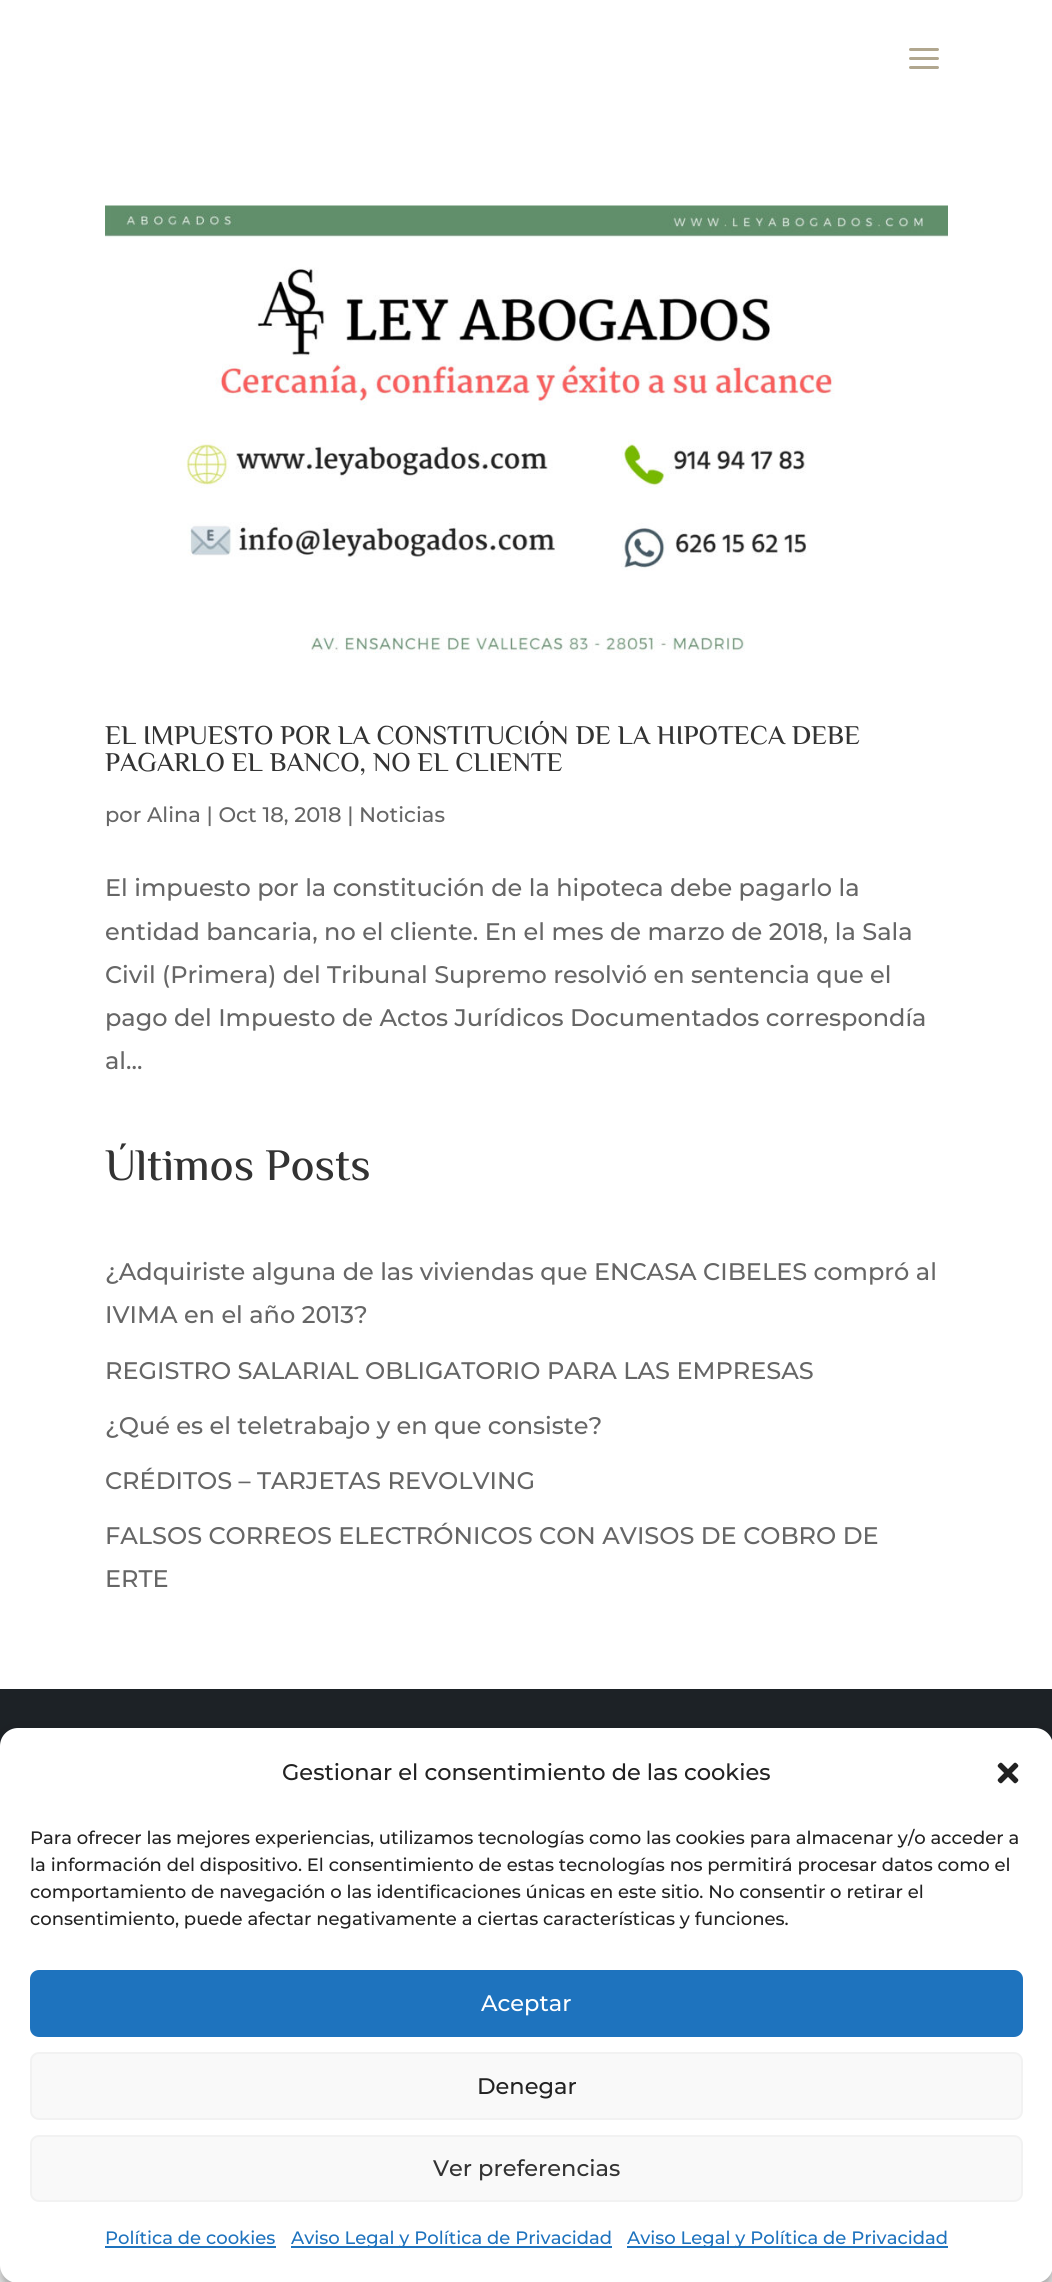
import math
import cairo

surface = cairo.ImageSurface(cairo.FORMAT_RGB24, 1052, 2282)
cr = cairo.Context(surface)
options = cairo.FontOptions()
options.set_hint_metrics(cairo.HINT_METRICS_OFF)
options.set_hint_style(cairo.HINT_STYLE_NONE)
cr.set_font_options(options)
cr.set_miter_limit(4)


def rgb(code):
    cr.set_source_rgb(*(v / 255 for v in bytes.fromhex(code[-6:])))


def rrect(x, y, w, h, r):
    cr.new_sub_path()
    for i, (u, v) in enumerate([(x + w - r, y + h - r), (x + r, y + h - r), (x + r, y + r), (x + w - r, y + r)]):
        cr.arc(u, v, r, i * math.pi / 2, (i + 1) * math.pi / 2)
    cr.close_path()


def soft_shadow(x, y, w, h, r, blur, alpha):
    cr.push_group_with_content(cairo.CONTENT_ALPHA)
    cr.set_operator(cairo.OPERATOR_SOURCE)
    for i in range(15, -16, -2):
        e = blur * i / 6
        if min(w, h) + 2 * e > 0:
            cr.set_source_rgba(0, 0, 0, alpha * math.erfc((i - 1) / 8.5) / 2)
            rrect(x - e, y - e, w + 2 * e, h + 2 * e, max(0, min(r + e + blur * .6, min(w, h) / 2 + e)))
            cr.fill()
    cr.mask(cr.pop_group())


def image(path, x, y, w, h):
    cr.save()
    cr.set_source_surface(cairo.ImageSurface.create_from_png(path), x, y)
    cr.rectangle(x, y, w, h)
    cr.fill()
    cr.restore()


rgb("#ffffff")
cr.paint()
image("img/1.png", 909, 48, 30, 21)
image("img/2.png", 105, 205, 843, 448)
rgb("#1d2226")
cr.rectangle(0, 1689, 1052, 57)
cr.fill()
rgb("#000000")
soft_shadow(0, 1737, 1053, 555, 18, 4.5, 0.23)
soft_shadow(0, 1743, 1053, 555, 18, 15, 0.19)
rgb("#ffffff")
rrect(0, 1728, 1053, 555, 18)
cr.fill()
image("img/3.png", 997, 1762, 22, 22)
rgb("#1e73be")
rrect(31, 1971, 991, 65, 8)
cr.fill_preserve()
cr.stroke()
rgb("#f9f9f9")
rrect(31, 2053, 991, 66, 8)
cr.fill_preserve()
rgb("#f2f2f2")
cr.stroke()
rgb("#f9f9f9")
rrect(31, 2136, 991, 65, 8)
cr.fill_preserve()
rgb("#f2f2f2")
cr.stroke()
for x, y, w, h, color in [
    (105, 2246, 171, 2, "#1e73be"),
    (291, 2246, 321, 2, "#1e73be"),
    (627, 2246, 321, 2, "#1e73be"),
]:
    rgb(color)
    cr.rectangle(x, y, w, h)
    cr.fill()
cr.select_font_face("El Messiri Medium")
cr.set_font_size(27)
rgb("#333333")
cr.move_to(105, 744)
cr.show_text("EL IMPUESTO POR LA CONSTITUCIÓN DE LA HIPOTECA DEBE")
cr.move_to(105, 771)
cr.show_text("PAGARLO EL BANCO, NO EL CLIENTE")
cr.select_font_face("Montserrat Medium")
cr.set_font_size(21)
rgb("#666666")
cr.move_to(105, 822)
cr.show_text("por Alina | Oct 18, 2018 | Noticias")
cr.set_font_size(24)
for x, y, s in [
    (105, 896, "El impuesto por la constitución de la hipoteca debe pagarlo la"),
    (105, 940, "entidad bancaria, no el cliente. En el mes de marzo de 2018, la Sala"),
    (105, 983, "Civil (Primera) del Tribunal Supremo resolvió en sentencia que el"),
    (105, 1026, "pago del Impuesto de Actos Jurídicos Documentados correspondía"),
    (105, 1069, "al..."),
]:
    cr.move_to(x, y)
    cr.show_text(s)
cr.select_font_face("El Messiri Medium")
cr.set_font_size(45)
rgb("#333333")
cr.move_to(105, 1180)
cr.show_text("Últimos Posts")
cr.select_font_face("Montserrat Medium")
cr.set_font_size(24)
rgb("#666666")
for x, y, s in [
    (105, 1280, "¿Adquiriste alguna de las viviendas que ENCASA CIBELES compró al"),
    (105, 1323, "IVIMA en el año 2013?"),
    (105, 1379, "REGISTRO SALARIAL OBLIGATORIO PARA LAS EMPRESAS"),
    (105, 1434, "¿Qué es el teletrabajo y en que consiste?"),
    (105, 1489, "CRÉDITOS – TARJETAS REVOLVING"),
    (105, 1544, "FALSOS CORREOS ELECTRÓNICOS CON AVISOS DE COBRO DE"),
    (105, 1587, "ERTE"),
]:
    cr.move_to(x, y)
    cr.show_text(s)
cr.set_font_size(22.5)
rgb("#222222")
cr.move_to(282, 1780)
cr.show_text("Gestionar el consentimiento de las cookies")
cr.set_font_size(18)
for x, y, s in [
    (30, 1844, "Para ofrecer las mejores experiencias, utilizamos tecnologías como las cookies para almacenar y/o acceder a"),
    (30, 1871, "la información del dispositivo. El consentimiento de estas tecnologías nos permitirá procesar datos como el"),
    (30, 1898, "comportamiento de navegación o las identificaciones únicas en este sitio. No consentir o retirar el"),
    (30, 1925, "consentimiento, puede afectar negativamente a ciertas características y funciones."),
]:
    cr.move_to(x, y)
    cr.show_text(s)
cr.set_font_size(22.5)
rgb("#ffffff")
cr.move_to(481, 2011)
cr.show_text("Aceptar")
rgb("#222222")
cr.move_to(477, 2094)
cr.show_text("Denegar")
rgb("#333333")
cr.move_to(433, 2176)
cr.show_text("Ver preferencias")
cr.set_font_size(18)
rgb("#1e73be")
for x, y, s in [
    (105, 2244, "Política de cookies"),
    (291, 2244, "Aviso Legal y Política de Privacidad"),
    (627, 2244, "Aviso Legal y Política de Privacidad"),
]:
    cr.move_to(x, y)
    cr.show_text(s)
surface.write_to_png("page.png")
